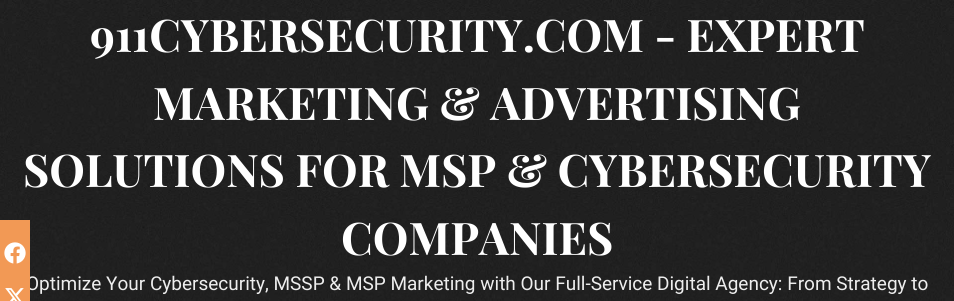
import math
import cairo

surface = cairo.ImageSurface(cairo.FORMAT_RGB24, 954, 301)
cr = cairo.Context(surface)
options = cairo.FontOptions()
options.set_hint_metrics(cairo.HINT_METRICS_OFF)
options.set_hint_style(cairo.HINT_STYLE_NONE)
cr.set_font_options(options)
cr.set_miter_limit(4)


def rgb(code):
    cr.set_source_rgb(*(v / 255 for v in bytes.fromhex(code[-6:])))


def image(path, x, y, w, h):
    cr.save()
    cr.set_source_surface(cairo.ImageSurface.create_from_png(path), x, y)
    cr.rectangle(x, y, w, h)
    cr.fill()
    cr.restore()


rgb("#ffffff")
cr.paint()
image("img/1.png", 0, 0, 954, 301)
cr.select_font_face("Playfair Display", cairo.FONT_SLANT_NORMAL, cairo.FONT_WEIGHT_BOLD)
cr.set_font_size(45)
rgb("#ffffff")
for x, y, s in [
    (90, 52, "911CYBERSECURITY.COM - EXPERT"),
    (153, 120, "MARKETING & ADVERTISING"),
    (23, 187, "SOLUTIONS FOR MSP & CYBERSECURITY"),
    (341, 255, "COMPANIES"),
]:
    cr.move_to(x, y)
    cr.show_text(s)
cr.select_font_face("Roboto")
cr.set_font_size(19)
rgb("#eeeeee")
cr.move_to(26, 290)
cr.show_text("Optimize Your Cybersecurity, MSSP & MSP Marketing with Our Full-Service Digital Agency: From Strategy to")
rgb("#f29955")
cr.rectangle(0, 220, 30, 81)
cr.fill()
image("img/3.png", 5, 288, 19, 13)
image("img/2.png", 4, 242, 22, 22)
surface.write_to_png("page.png")
